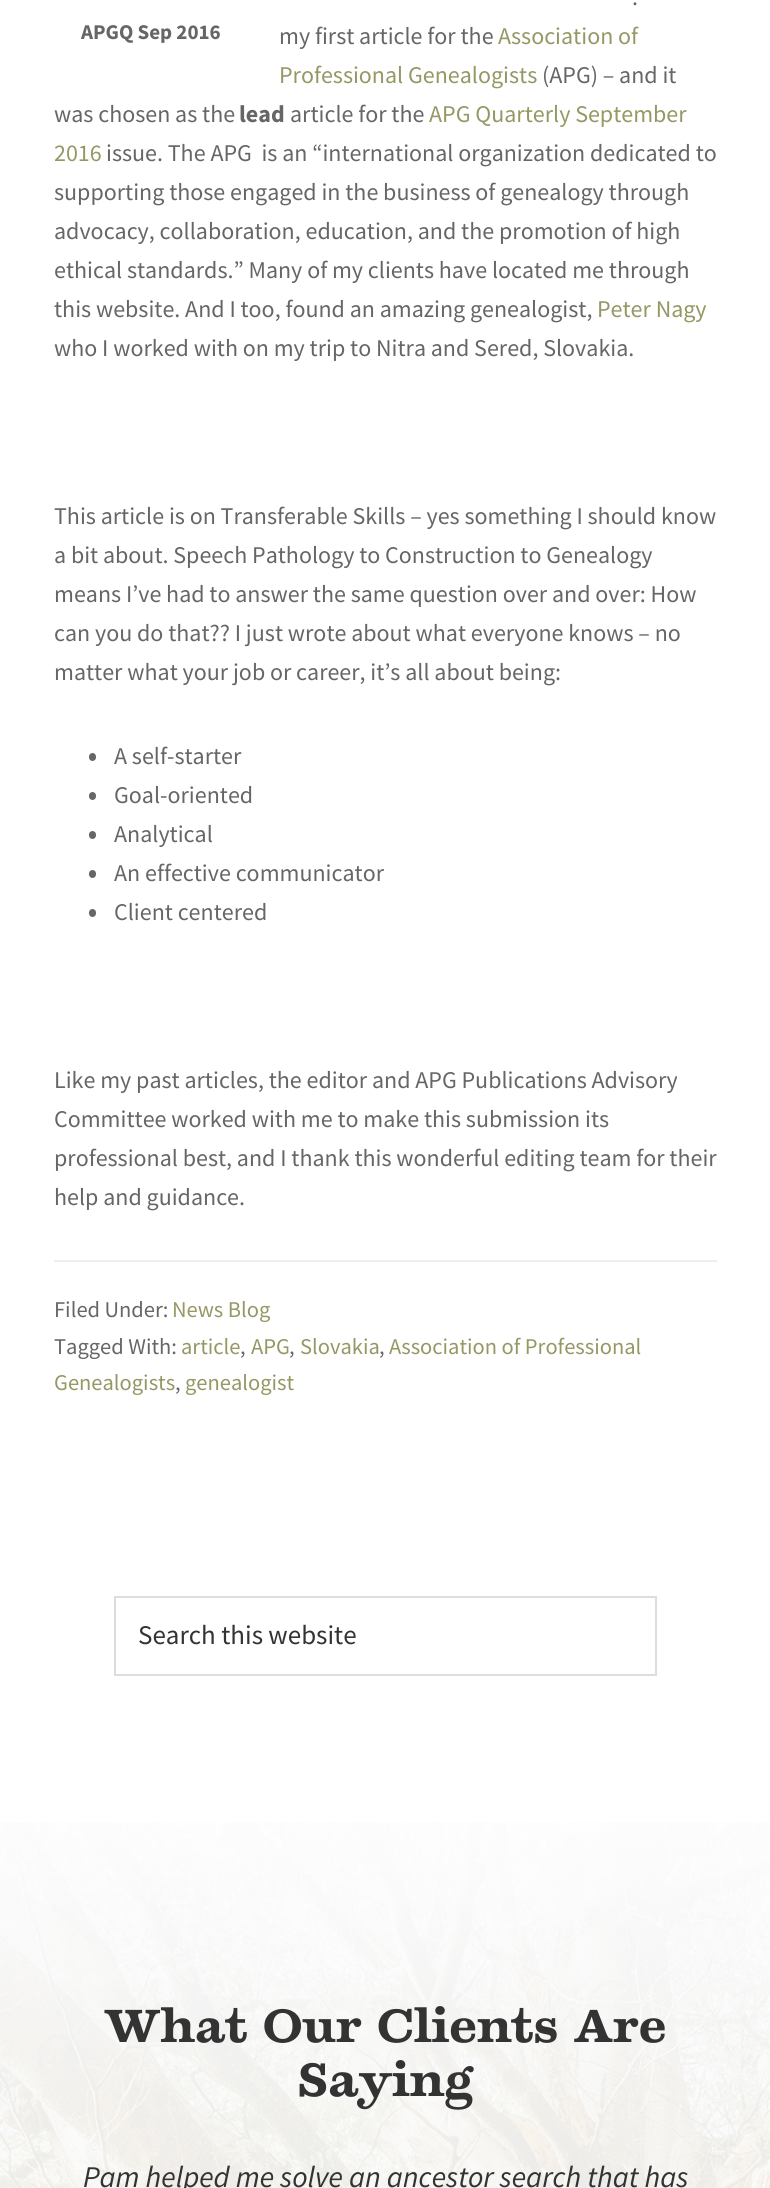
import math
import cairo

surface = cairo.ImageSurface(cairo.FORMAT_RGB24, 770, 2188)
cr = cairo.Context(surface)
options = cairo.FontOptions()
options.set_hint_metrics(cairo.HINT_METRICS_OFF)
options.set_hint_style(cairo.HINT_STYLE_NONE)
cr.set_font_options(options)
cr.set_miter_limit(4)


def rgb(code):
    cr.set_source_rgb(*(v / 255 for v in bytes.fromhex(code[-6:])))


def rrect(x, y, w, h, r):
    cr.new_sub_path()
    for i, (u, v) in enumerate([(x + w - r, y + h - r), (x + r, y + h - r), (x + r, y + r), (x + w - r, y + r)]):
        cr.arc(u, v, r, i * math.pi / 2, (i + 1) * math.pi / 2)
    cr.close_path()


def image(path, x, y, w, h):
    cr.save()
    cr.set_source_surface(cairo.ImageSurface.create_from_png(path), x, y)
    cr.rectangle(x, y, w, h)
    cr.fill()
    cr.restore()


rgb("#ffffff")
cr.paint()
rgb("#666666")
rrect(89, 753, 7, 8, 3.5)
cr.fill()
rrect(89, 792, 7, 8, 3.5)
cr.fill()
rrect(89, 831, 7, 8, 3.5)
cr.fill()
rrect(89, 870, 7, 8, 3.5)
cr.fill()
rrect(89, 909, 7, 8, 3.5)
cr.fill()
rgb("#eeeeee")
cr.rectangle(54, 1260, 663, 2)
cr.fill()
cr.rectangle(115, 1597, 541, 78)
rgb("#dddddd")
cr.stroke()
image("img/1.png", 0, 1822, 770, 366)
cr.select_font_face("Source Sans Pro")
cr.set_font_size(24)
rgb("#666666")
cr.move_to(632, 5)
cr.show_text(".")
cr.move_to(279, 44)
cr.show_text("my first article for the")
rgb("#969864")
cr.move_to(498, 44)
cr.show_text("Association of")
cr.move_to(279, 83)
cr.show_text("Professional Genealogists")
rgb("#666666")
cr.move_to(542, 83)
cr.show_text("(APG) – and it")
cr.move_to(54, 122)
cr.show_text("was chosen as the")
cr.select_font_face("Source Sans Pro", cairo.FONT_SLANT_NORMAL, cairo.FONT_WEIGHT_BOLD)
cr.move_to(239, 122)
cr.show_text("lead")
cr.select_font_face("Source Sans Pro")
cr.move_to(290, 122)
cr.show_text("article for the")
rgb("#969864")
cr.move_to(429, 122)
cr.show_text("APG Quarterly September")
cr.move_to(54, 161)
cr.show_text("2016")
rgb("#666666")
for x, y, s in [
    (106, 161, "issue. The APG  is an “international organization dedicated to"),
    (54, 200, "supporting those engaged in the business of genealogy through"),
    (54, 239, "advocacy, collaboration, education, and the promotion of high"),
    (54, 278, "ethical standards.” Many of my clients have located me through"),
    (54, 317, "this website. And I too, found an amazing genealogist,"),
]:
    cr.move_to(x, y)
    cr.show_text(s)
rgb("#969864")
cr.move_to(597, 317)
cr.show_text("Peter Nagy")
rgb("#666666")
cr.move_to(54, 356)
cr.show_text("who I worked with on my trip to Nitra and Sered, Slovakia.")
cr.select_font_face("Source Sans Pro", cairo.FONT_SLANT_NORMAL, cairo.FONT_WEIGHT_BOLD)
cr.set_font_size(21)
cr.move_to(81, 39)
cr.show_text("APGQ Sep 2016")
cr.select_font_face("Source Sans Pro")
cr.set_font_size(24)
for x, y, s in [
    (54, 524, "This article is on Transferable Skills – yes something I should know"),
    (54, 563, "a bit about. Speech Pathology to Construction to Genealogy"),
    (54, 602, "means I’ve had to answer the same question over and over: How"),
    (54, 641, "can you do that?? I just wrote about what everyone knows – no"),
    (54, 680, "matter what your job or career, it’s all about being:"),
    (114, 764, "A self-starter"),
    (114, 803, "Goal-oriented"),
    (114, 842, "Analytical"),
    (114, 881, "An effective communicator"),
    (114, 920, "Client centered"),
    (54, 1088, "Like my past articles, the editor and APG Publications Advisory"),
    (54, 1127, "Committee worked with me to make this submission its"),
    (54, 1166, "professional best, and I thank this wonderful editing team for their"),
    (54, 1205, "help and guidance."),
]:
    cr.move_to(x, y)
    cr.show_text(s)
cr.set_font_size(22.5)
cr.move_to(54, 1317)
cr.show_text("Filed Under:")
rgb("#969864")
cr.move_to(172, 1317)
cr.show_text("News Blog")
rgb("#666666")
cr.move_to(54, 1354)
cr.show_text("Tagged With:")
rgb("#969864")
cr.move_to(181, 1354)
cr.show_text("article")
rgb("#666666")
cr.move_to(240, 1354)
cr.show_text(",")
rgb("#969864")
cr.move_to(251, 1354)
cr.show_text("APG")
rgb("#666666")
cr.move_to(289, 1354)
cr.show_text(",")
rgb("#969864")
cr.move_to(300, 1354)
cr.show_text("Slovakia")
rgb("#666666")
cr.move_to(379, 1354)
cr.show_text(",")
rgb("#969864")
cr.move_to(389, 1354)
cr.show_text("Association of Professional")
cr.move_to(54, 1390)
cr.show_text("Genealogists")
rgb("#666666")
cr.move_to(175, 1390)
cr.show_text(",")
rgb("#969864")
cr.move_to(185, 1390)
cr.show_text("genealogist")
cr.set_font_size(27)
rgb("#333333")
cr.move_to(138, 1644)
cr.show_text("Search this website")
cr.select_font_face("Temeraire", cairo.FONT_SLANT_NORMAL, cairo.FONT_WEIGHT_BOLD)
cr.set_font_size(45)
cr.move_to(104, 2042)
cr.show_text("What Our Clients Are")
cr.move_to(298, 2096)
cr.show_text("Saying")
cr.select_font_face("Source Sans Pro", cairo.FONT_SLANT_ITALIC)
cr.set_font_size(30)
cr.move_to(83, 2187)
cr.show_text("Pam helped me solve an ancestor search that has")
surface.write_to_png("page.png")
